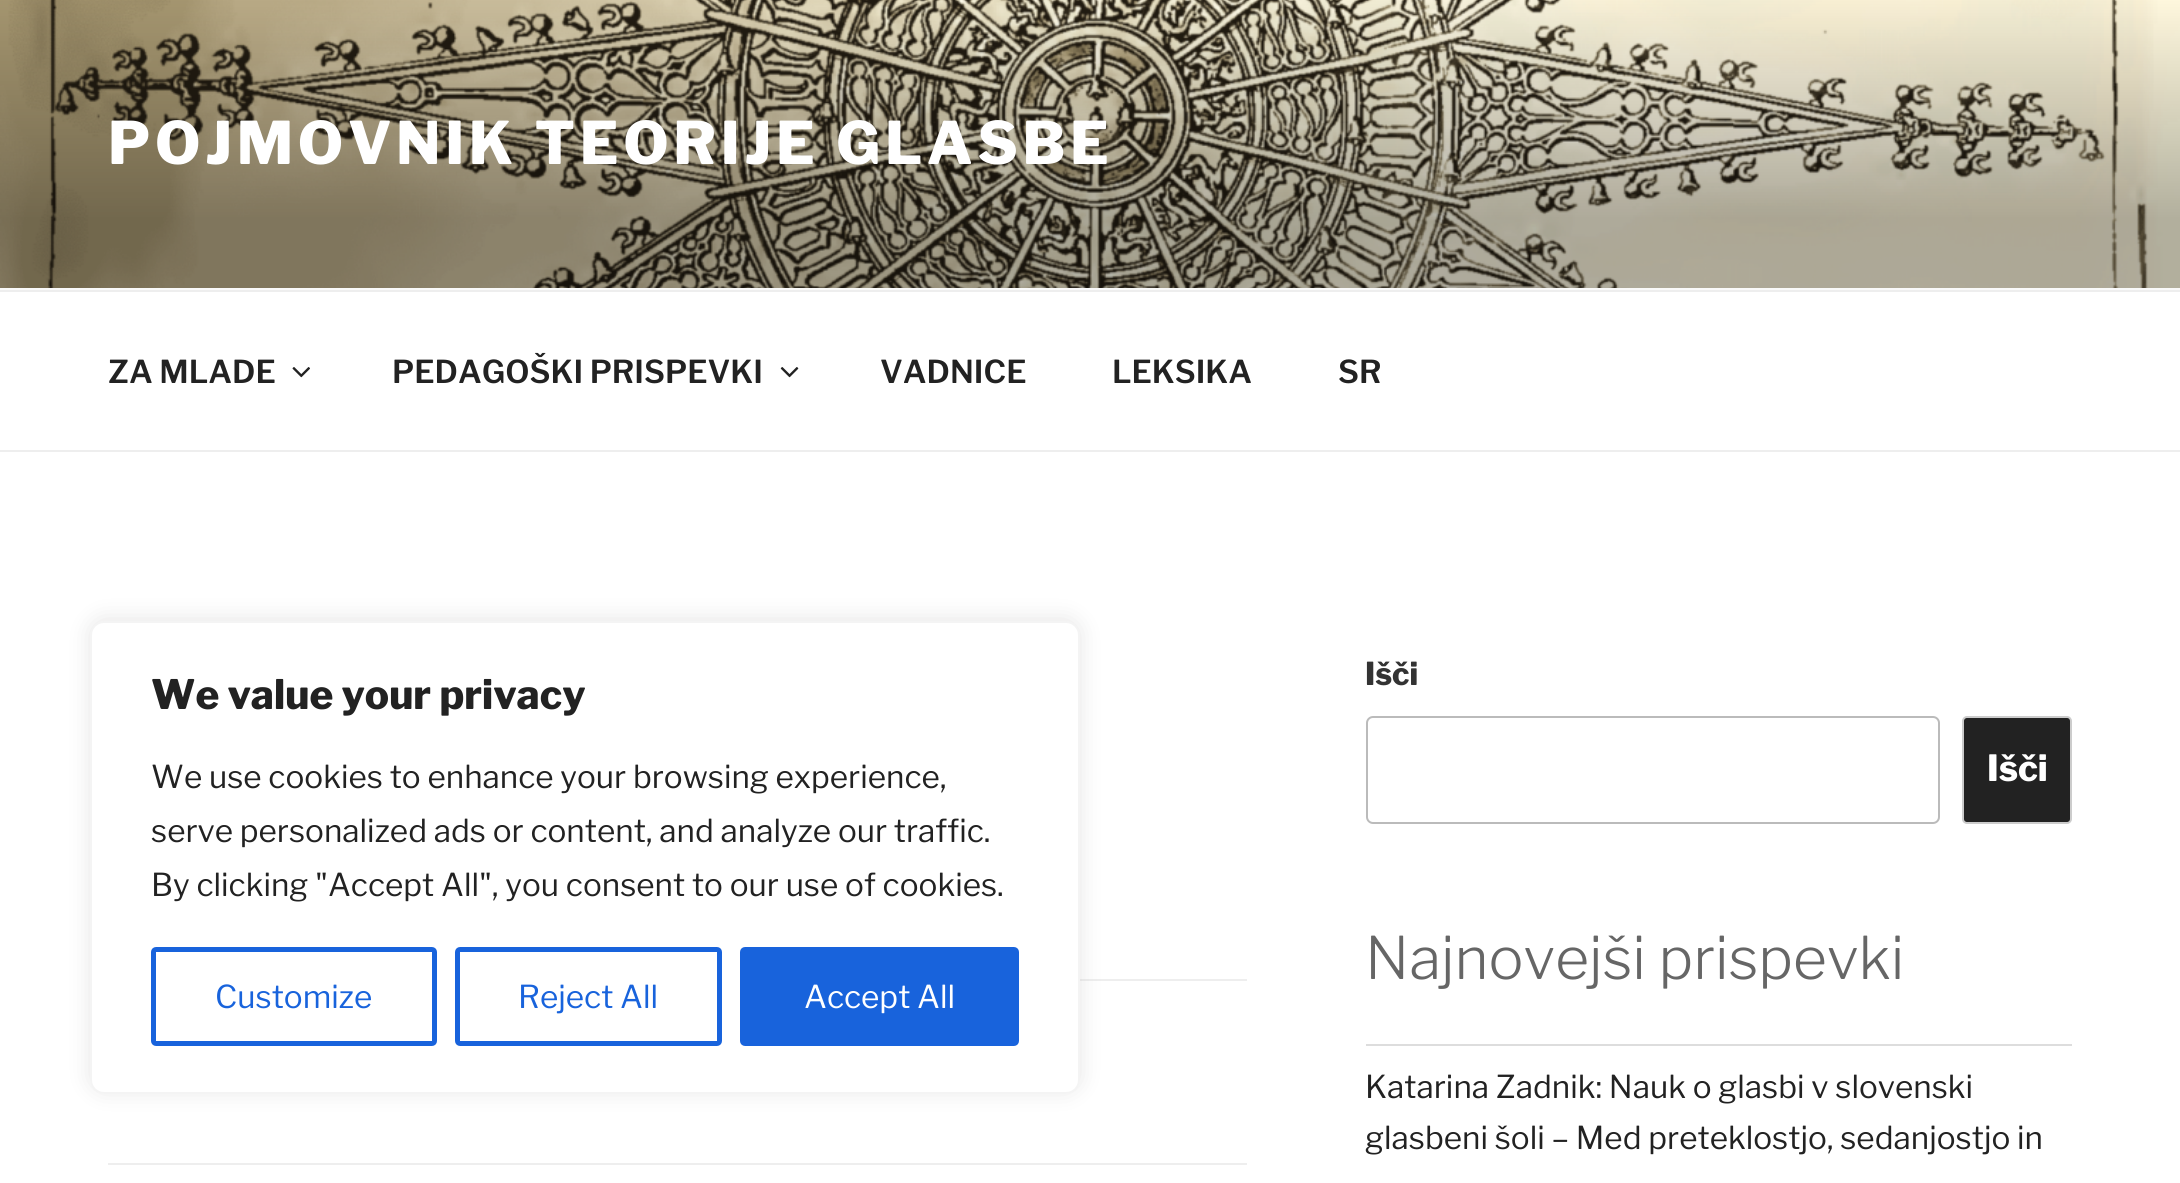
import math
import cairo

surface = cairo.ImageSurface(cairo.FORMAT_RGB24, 2180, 1183)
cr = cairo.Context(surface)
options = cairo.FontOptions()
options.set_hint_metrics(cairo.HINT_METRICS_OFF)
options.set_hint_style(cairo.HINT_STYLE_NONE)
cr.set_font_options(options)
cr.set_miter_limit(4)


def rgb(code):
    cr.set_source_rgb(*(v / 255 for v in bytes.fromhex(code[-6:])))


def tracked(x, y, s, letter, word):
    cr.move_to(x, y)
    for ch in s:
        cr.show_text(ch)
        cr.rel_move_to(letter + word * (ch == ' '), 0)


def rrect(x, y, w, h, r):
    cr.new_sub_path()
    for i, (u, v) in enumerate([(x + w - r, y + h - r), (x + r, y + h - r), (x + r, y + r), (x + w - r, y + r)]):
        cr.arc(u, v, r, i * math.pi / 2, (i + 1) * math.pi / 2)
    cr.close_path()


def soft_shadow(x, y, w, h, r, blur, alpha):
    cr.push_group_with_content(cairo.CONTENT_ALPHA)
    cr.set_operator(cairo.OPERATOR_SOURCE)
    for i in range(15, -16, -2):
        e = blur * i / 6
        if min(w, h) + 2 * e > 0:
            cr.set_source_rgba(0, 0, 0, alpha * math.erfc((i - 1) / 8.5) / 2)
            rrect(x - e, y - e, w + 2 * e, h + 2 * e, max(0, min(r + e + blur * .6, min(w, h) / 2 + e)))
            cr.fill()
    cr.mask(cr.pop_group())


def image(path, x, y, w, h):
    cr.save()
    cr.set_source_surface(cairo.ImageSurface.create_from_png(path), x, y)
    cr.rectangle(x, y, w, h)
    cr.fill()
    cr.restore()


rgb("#ffffff")
cr.paint()
rgb("#fafafa")
cr.rectangle(0, 288, 2180, 2)
cr.fill()
image("img/1.png", 0, 0, 2180, 288)
rgb("#eeeeee")
cr.rectangle(0, 290, 2180, 2)
cr.fill()
cr.rectangle(0, 450, 2180, 2)
cr.fill()
image("img/2.png", 292, 367, 18, 11)
image("img/3.png", 780, 367, 19, 11)
cr.rectangle(1080, 979, 167, 2)
cr.fill()
cr.rectangle(108, 1163, 1139, 2)
cr.fill()
rrect(1367, 717, 572, 106, 6)
rgb("#bbbbbb")
cr.stroke()
rgb("#222222")
rrect(1963, 717, 108, 106, 4)
cr.fill_preserve()
rgb("#cccccc")
cr.stroke()
rgb("#dddddd")
cr.rectangle(1366, 1044, 706, 2)
cr.fill()
rgb("#acabab")
soft_shadow(90, 619, 990, 472, 14, 11, 0.3)
rgb("#ffffff")
rrect(91, 622, 988, 471, 13)
cr.fill_preserve()
rgb("#f4f4f4")
cr.stroke()
rrect(153.5, 949.5, 281, 94, 2.5)
rgb("#1863dc")
cr.set_line_width(5)
cr.stroke()
rrect(457.5, 949.5, 262, 94, 2.5)
cr.stroke()
rrect(742.5, 949.5, 274, 94, 2.5)
cr.fill_preserve()
cr.stroke()
cr.select_font_face("Libre Franklin Thin")
cr.set_font_size(58.5)
rgb("#ffffff")
tracked(108, 164, "POJMOVNIK TEORIJE GLASBE", 4.7, 0)
cr.select_font_face("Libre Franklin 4 Thin")
cr.set_font_size(31.5)
rgb("#222222")
for x, y, s in [
    (108, 383, "ZA MLADE"),
    (392, 383, "PEDAGOŠKI PRISPEVKI"),
    (880, 383, "VADNICE"),
    (1112, 383, "LEKSIKA"),
    (1338, 383, "SR"),
]:
    cr.move_to(x, y)
    cr.show_text(s)
cr.select_font_face("Libre Franklin Thin")
rgb("#333333")
cr.move_to(1365, 685)
cr.show_text("Išči")
cr.set_font_size(36)
rgb("#ffffff")
cr.move_to(1987, 781)
cr.show_text("Išči")
cr.select_font_face("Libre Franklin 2 Thin")
cr.set_font_size(58.5)
rgb("#666666")
cr.move_to(1365, 979)
cr.show_text("Najnovejši prispevki")
cr.select_font_face("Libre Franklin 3 Thin")
cr.set_font_size(31.5)
rgb("#222222")
cr.move_to(1365, 1098)
cr.show_text("Katarina Zadnik: Nauk o glasbi v slovenski")
cr.move_to(1365, 1149)
cr.show_text("glasbeni šoli – Med preteklostjo, sedanjostjo in")
cr.select_font_face("Libre Franklin Thin")
cr.set_font_size(40.5)
cr.move_to(151, 709)
cr.show_text("We value your privacy")
cr.select_font_face("Libre Franklin 3 Thin")
cr.set_font_size(31.5)
for x, y, s in [
    (151, 788, "We use cookies to enhance your browsing experience,"),
    (151, 842, "serve personalized ads or content, and analyze our traffic."),
    (151, 896, "By clicking \"Accept All\", you consent to our use of cookies."),
]:
    cr.move_to(x, y)
    cr.show_text(s)
rgb("#1863dc")
cr.move_to(215, 1008)
cr.show_text("Customize")
cr.move_to(518, 1008)
cr.show_text("Reject All")
rgb("#ffffff")
cr.move_to(804, 1008)
cr.show_text("Accept All")
surface.write_to_png("page.png")
